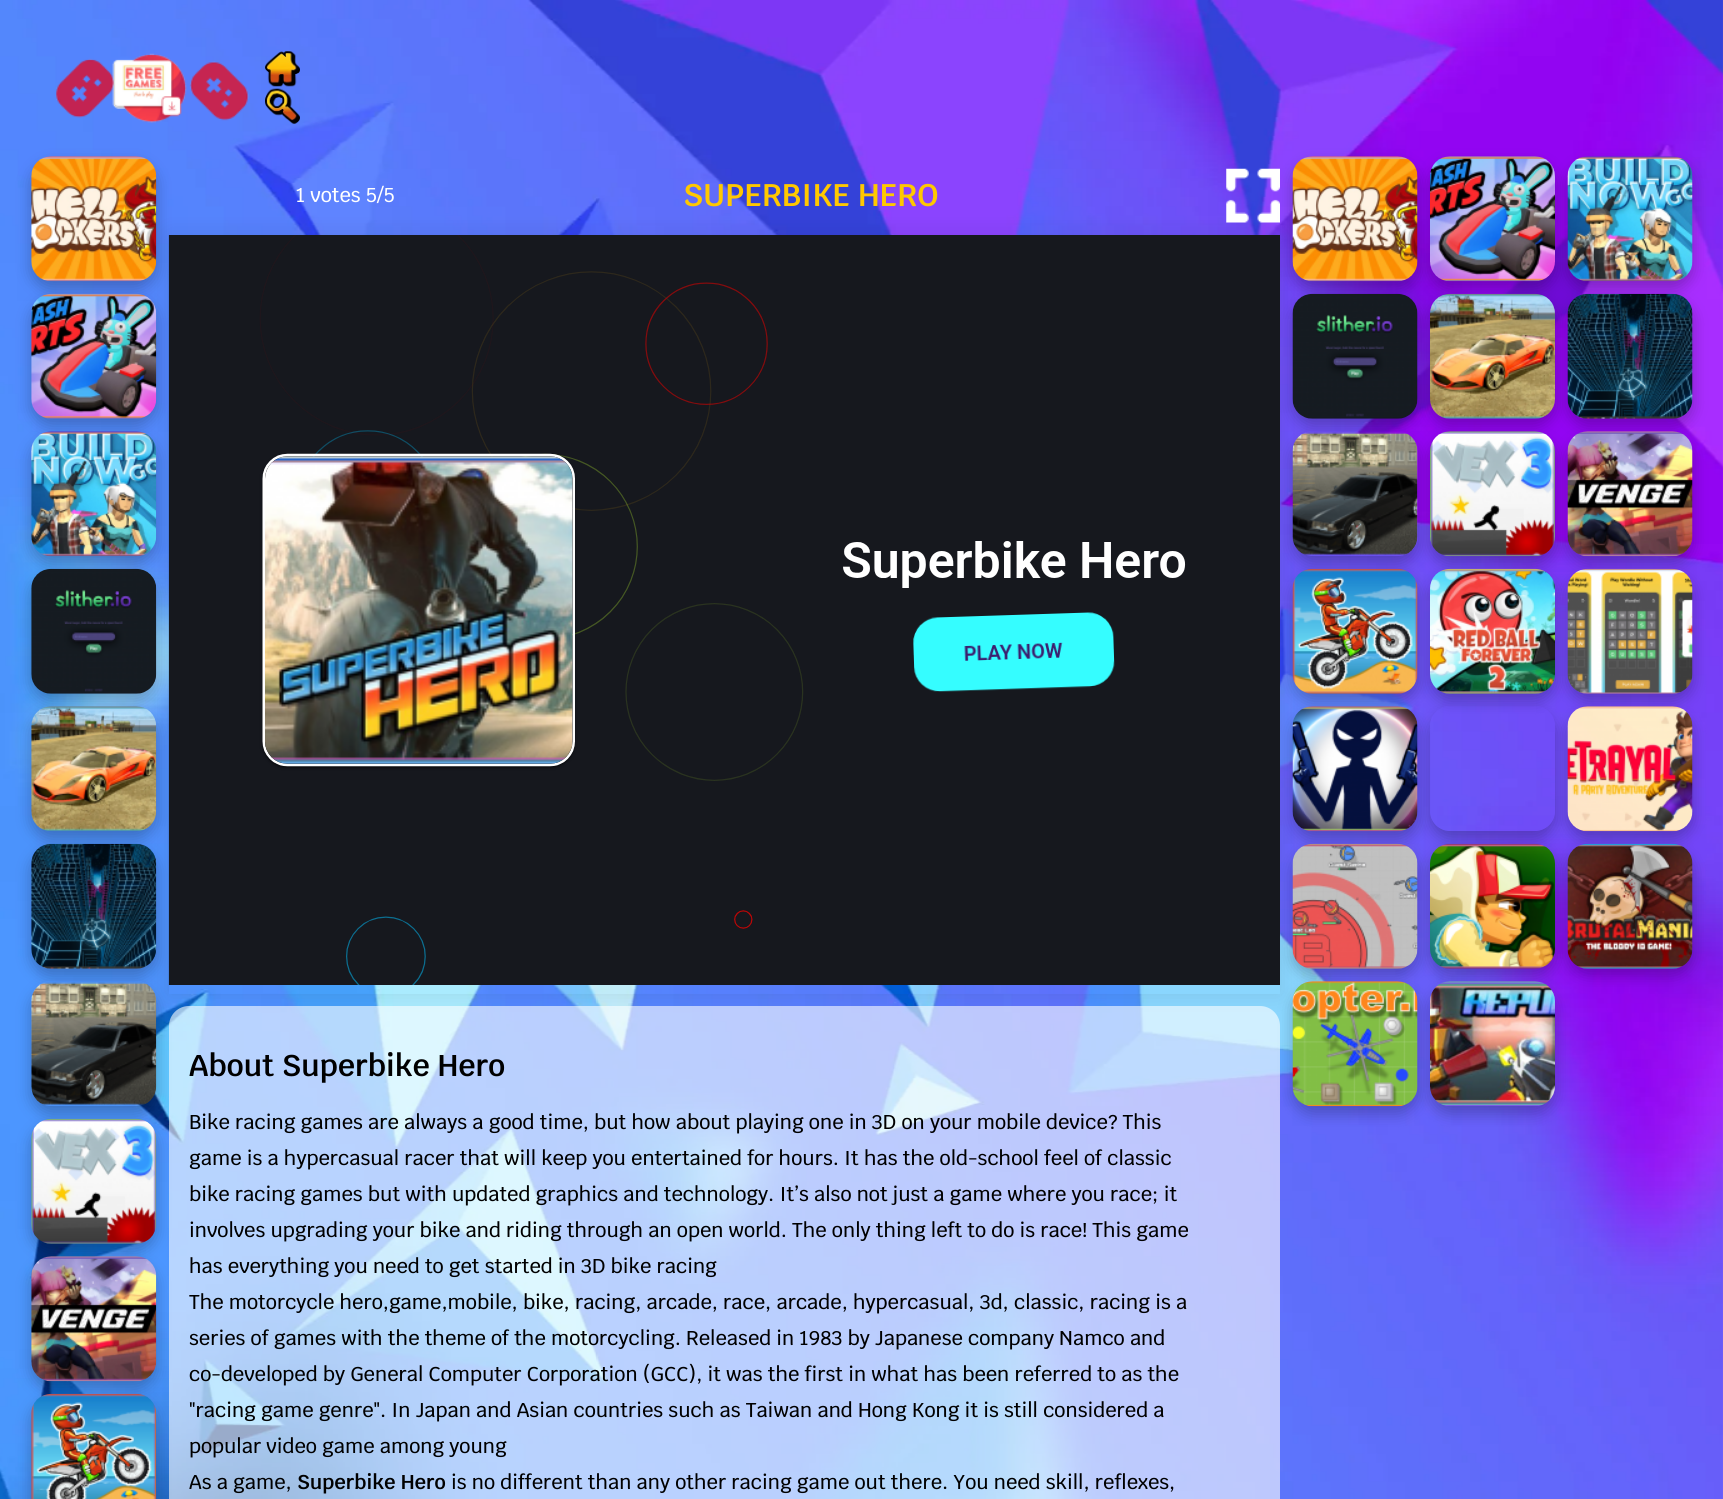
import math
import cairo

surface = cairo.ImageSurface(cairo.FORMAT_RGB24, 1723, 1499)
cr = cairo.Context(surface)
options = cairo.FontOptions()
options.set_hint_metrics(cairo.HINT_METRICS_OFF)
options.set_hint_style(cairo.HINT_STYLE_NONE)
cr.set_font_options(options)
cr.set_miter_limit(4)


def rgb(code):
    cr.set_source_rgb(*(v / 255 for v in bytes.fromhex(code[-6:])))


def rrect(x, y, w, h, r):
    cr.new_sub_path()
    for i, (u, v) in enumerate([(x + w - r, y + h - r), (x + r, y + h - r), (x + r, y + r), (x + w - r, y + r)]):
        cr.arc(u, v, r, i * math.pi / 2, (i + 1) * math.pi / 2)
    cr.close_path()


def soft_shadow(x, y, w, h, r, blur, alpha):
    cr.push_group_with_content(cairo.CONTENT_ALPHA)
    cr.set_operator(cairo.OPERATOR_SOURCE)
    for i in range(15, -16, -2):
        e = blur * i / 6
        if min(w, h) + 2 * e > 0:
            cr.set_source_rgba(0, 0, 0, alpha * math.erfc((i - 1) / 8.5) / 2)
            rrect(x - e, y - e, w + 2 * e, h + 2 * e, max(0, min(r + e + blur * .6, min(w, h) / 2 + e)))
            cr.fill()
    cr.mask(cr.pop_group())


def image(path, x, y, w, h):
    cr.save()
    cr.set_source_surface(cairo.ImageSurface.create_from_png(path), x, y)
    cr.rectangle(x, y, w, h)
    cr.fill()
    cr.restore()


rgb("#ffffff")
cr.paint()
image("img/1.png", 0, 0, 1723, 1499)
image("img/2.png", 56, 53, 193, 70)
image("img/3.png", 265, 51, 35, 36)
image("img/4.png", 265, 88, 35, 36)
cr.save()
cr.set_fill_rule(cairo.FILL_RULE_EVEN_ODD)
cr.new_path()
cr.move_to(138, 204)
cr.line_to(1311, 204)
cr.line_to(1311, 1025)
cr.line_to(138, 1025)
cr.close_path()
cr.move_to(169, 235)
cr.line_to(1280, 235)
cr.line_to(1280, 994)
cr.line_to(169, 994)
cr.close_path()
cr.clip()
rgb("#11111a")
soft_shadow(169, 235, 1111, 759, 0, 10, 0.1)
cr.restore()
image("img/16.png", 168, 235, 1112, 750)
rgb("#000000")
soft_shadow(31, 164, 125, 125, 20, 7.5, 0.24)
image("img/5.png", 31, 156, 126, 126)
soft_shadow(31, 301, 125, 125, 20, 7.5, 0.24)
image("img/6.png", 31, 293, 126, 126)
soft_shadow(31, 439, 125, 125, 20, 7.5, 0.24)
image("img/7.png", 31, 431, 126, 126)
soft_shadow(31, 576, 125, 125, 20, 7.5, 0.24)
image("img/8.png", 31, 568, 126, 126)
soft_shadow(31, 714, 125, 125, 20, 7.5, 0.24)
image("img/9.png", 31, 706, 126, 125)
soft_shadow(31, 851, 125, 125, 20, 7.5, 0.24)
image("img/10.png", 31, 843, 126, 126)
cr.set_source_rgba(1, 1, 1, 0.6)
rrect(169, 1006, 1111, 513, 20)
cr.fill()
cr.save()
cr.set_fill_rule(cairo.FILL_RULE_EVEN_ODD)
cr.new_path()
cr.move_to(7, 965)
cr.line_to(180, 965)
cr.line_to(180, 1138)
cr.line_to(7, 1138)
cr.close_path()
cr.move_to(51, 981)
cr.line_to(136, 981)
cr.curve_to(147, 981, 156, 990, 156, 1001)
cr.line_to(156, 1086)
cr.curve_to(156, 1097, 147, 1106, 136, 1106)
cr.line_to(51, 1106)
cr.curve_to(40, 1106, 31, 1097, 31, 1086)
cr.line_to(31, 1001)
cr.curve_to(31, 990, 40, 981, 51, 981)
cr.close_path()
cr.clip()
rgb("#000000")
soft_shadow(31, 989, 125, 125, 20, 7.5, 0.24)
cr.restore()
image("img/11.png", 31, 982, 126, 124)
rgb("#000000")
soft_shadow(31, 1126, 125, 125, 20, 7.5, 0.24)
image("img/12.png", 31, 1118, 126, 126)
soft_shadow(31, 1264, 125, 125, 20, 7.5, 0.24)
image("img/13.png", 31, 1256, 126, 126)
soft_shadow(31, 1401, 125, 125, 20, 7.5, 0.24)
image("img/14.png", 31, 1393, 126, 106)
image("img/15.png", 1226, 168, 54, 55)
soft_shadow(1293, 164, 125, 125, 20, 7.5, 0.24)
image("img/17.png", 1292, 156, 126, 126)
soft_shadow(1430, 164, 125, 125, 20, 7.5, 0.24)
image("img/18.png", 1430, 156, 125, 126)
soft_shadow(1568, 164, 125, 125, 20, 7.5, 0.24)
image("img/19.png", 1567, 156, 126, 126)
soft_shadow(1293, 301, 125, 125, 20, 7.5, 0.24)
image("img/20.png", 1292, 293, 126, 126)
soft_shadow(1430, 301, 125, 125, 20, 7.5, 0.24)
image("img/21.png", 1430, 293, 125, 126)
soft_shadow(1568, 301, 125, 125, 20, 7.5, 0.24)
image("img/22.png", 1567, 293, 126, 126)
cr.save()
cr.set_fill_rule(cairo.FILL_RULE_EVEN_ODD)
cr.new_path()
cr.move_to(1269, 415)
cr.line_to(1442, 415)
cr.line_to(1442, 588)
cr.line_to(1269, 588)
cr.close_path()
cr.move_to(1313, 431)
cr.line_to(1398, 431)
cr.curve_to(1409, 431, 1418, 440, 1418, 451)
cr.line_to(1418, 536)
cr.curve_to(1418, 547, 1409, 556, 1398, 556)
cr.line_to(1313, 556)
cr.curve_to(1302, 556, 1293, 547, 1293, 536)
cr.line_to(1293, 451)
cr.curve_to(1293, 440, 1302, 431, 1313, 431)
cr.close_path()
cr.clip()
soft_shadow(1293, 439, 125, 125, 20, 7.5, 0.24)
cr.restore()
image("img/23.png", 1292, 432, 126, 124)
soft_shadow(1430, 439, 125, 125, 20, 7.5, 0.24)
image("img/24.png", 1430, 431, 125, 126)
soft_shadow(1568, 439, 125, 125, 20, 7.5, 0.24)
image("img/25.png", 1567, 431, 126, 126)
soft_shadow(1293, 576, 125, 125, 20, 7.5, 0.24)
image("img/26.png", 1292, 568, 126, 126)
soft_shadow(1430, 576, 125, 125, 20, 7.5, 0.24)
image("img/27.png", 1430, 568, 125, 126)
soft_shadow(1568, 576, 125, 125, 20, 7.5, 0.24)
image("img/28.png", 1567, 568, 126, 126)
soft_shadow(1293, 714, 125, 125, 20, 7.5, 0.24)
image("img/29.png", 1292, 706, 126, 126)
cr.save()
cr.set_fill_rule(cairo.FILL_RULE_EVEN_ODD)
cr.new_path()
cr.move_to(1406, 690)
cr.line_to(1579, 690)
cr.line_to(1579, 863)
cr.line_to(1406, 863)
cr.close_path()
cr.move_to(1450, 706)
cr.line_to(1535, 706)
cr.curve_to(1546, 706, 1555, 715, 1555, 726)
cr.line_to(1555, 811)
cr.curve_to(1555, 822, 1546, 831, 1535, 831)
cr.line_to(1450, 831)
cr.curve_to(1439, 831, 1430, 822, 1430, 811)
cr.line_to(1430, 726)
cr.curve_to(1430, 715, 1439, 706, 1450, 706)
cr.close_path()
cr.clip()
soft_shadow(1430, 714, 125, 125, 20, 7.5, 0.24)
cr.restore()
soft_shadow(1568, 714, 125, 125, 20, 7.5, 0.24)
image("img/30.png", 1567, 706, 126, 126)
soft_shadow(1293, 851, 125, 125, 20, 7.5, 0.24)
image("img/31.png", 1292, 843, 126, 126)
soft_shadow(1430, 851, 125, 125, 20, 7.5, 0.24)
image("img/32.png", 1430, 843, 125, 126)
soft_shadow(1568, 851, 125, 125, 20, 7.5, 0.24)
image("img/33.png", 1567, 843, 126, 126)
soft_shadow(1293, 989, 125, 125, 20, 7.5, 0.24)
image("img/34.png", 1292, 981, 126, 126)
soft_shadow(1430, 989, 125, 125, 20, 7.5, 0.24)
image("img/35.png", 1430, 981, 125, 125)
cr.select_font_face("Krub Medium")
cr.set_font_size(20)
rgb("#ffffff")
cr.move_to(296, 202)
cr.show_text("1 votes 5/5")
cr.select_font_face("Krub SemiBold")
cr.set_font_size(31.25)
rgb("#ffc800")
cr.move_to(683, 206)
cr.show_text("SUPERBIKE HERO")
cr.set_font_size(30)
rgb("#000000")
cr.move_to(189, 1076)
cr.show_text("About Superbike Hero")
cr.select_font_face("Krub Medium")
cr.set_font_size(20)
for x, y, s in [
    (189, 1129, "Bike racing games are always a good time, but how about playing one in 3D on your mobile device? This"),
    (189, 1165, "game is a hypercasual racer that will keep you entertained for hours. It has the old-school feel of classic"),
    (189, 1201, "bike racing games but with updated graphics and technology. It’s also not just a game where you race; it"),
    (189, 1237, "involves upgrading your bike and riding through an open world. The only thing left to do is race! This game"),
    (189, 1273, "has everything you need to get started in 3D bike racing"),
    (189, 1309, "The motorcycle hero,game,mobile, bike, racing, arcade, race, arcade, hypercasual, 3d, classic, racing is a"),
    (189, 1345, "series of games with the theme of the motorcycling. Released in 1983 by Japanese company Namco and"),
    (189, 1381, "co-developed by General Computer Corporation (GCC), it was the first in what has been referred to as the"),
    (189, 1417, "\"racing game genre\". In Japan and Asian countries such as Taiwan and Hong Kong it is still considered a"),
    (189, 1453, "popular video game among young"),
    (189, 1489, "As a game,"),
]:
    cr.move_to(x, y)
    cr.show_text(s)
cr.select_font_face("Krub SemiBold")
cr.move_to(297, 1489)
cr.show_text("Superbike Hero")
cr.select_font_face("Krub Medium")
cr.move_to(451, 1489)
cr.show_text("is no different than any other racing game out there. You need skill, reflexes,")
surface.write_to_png("page.png")
